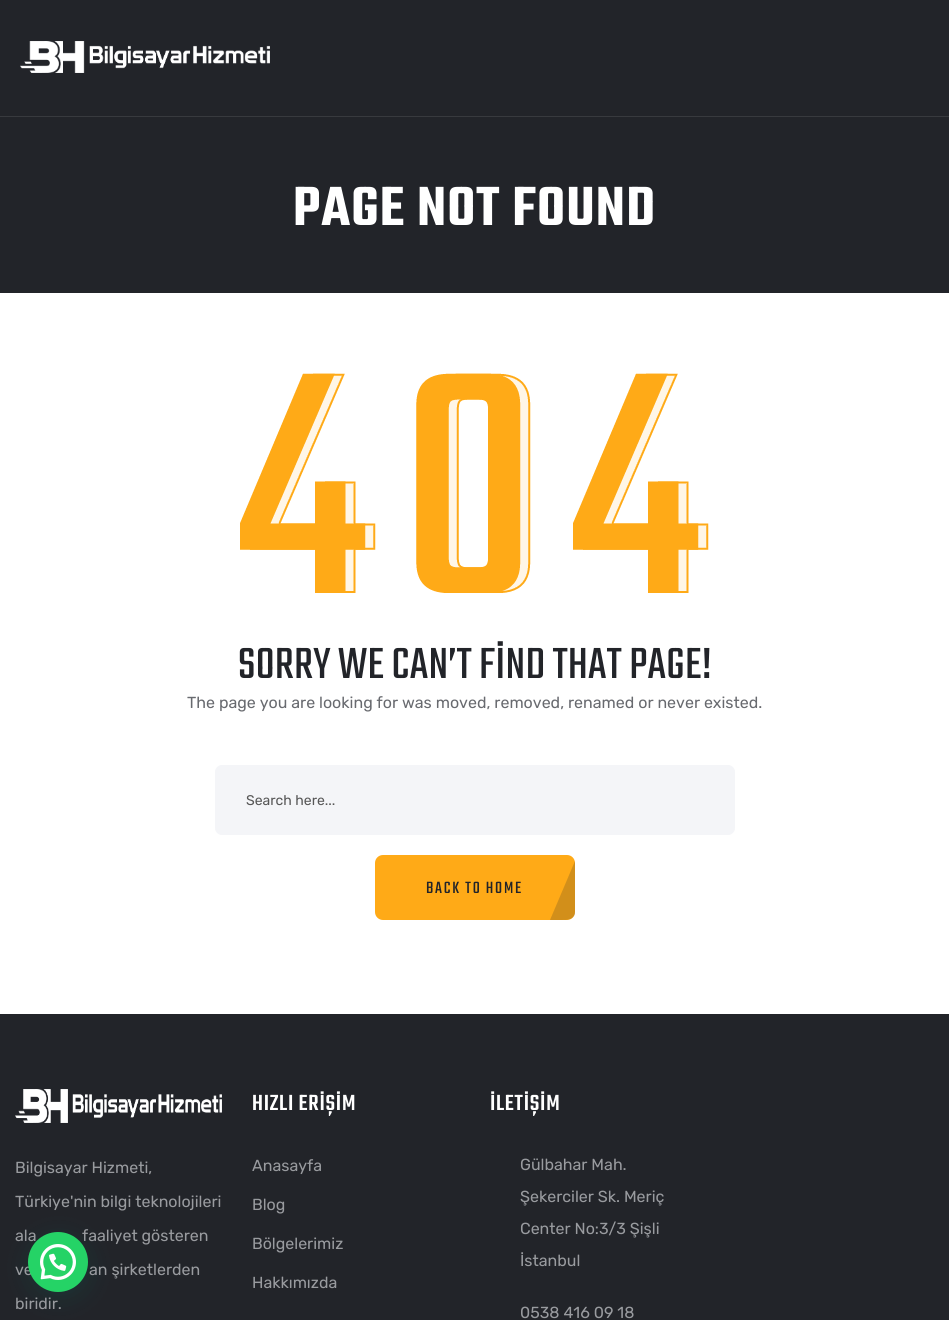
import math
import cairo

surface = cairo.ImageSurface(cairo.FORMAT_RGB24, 949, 1320)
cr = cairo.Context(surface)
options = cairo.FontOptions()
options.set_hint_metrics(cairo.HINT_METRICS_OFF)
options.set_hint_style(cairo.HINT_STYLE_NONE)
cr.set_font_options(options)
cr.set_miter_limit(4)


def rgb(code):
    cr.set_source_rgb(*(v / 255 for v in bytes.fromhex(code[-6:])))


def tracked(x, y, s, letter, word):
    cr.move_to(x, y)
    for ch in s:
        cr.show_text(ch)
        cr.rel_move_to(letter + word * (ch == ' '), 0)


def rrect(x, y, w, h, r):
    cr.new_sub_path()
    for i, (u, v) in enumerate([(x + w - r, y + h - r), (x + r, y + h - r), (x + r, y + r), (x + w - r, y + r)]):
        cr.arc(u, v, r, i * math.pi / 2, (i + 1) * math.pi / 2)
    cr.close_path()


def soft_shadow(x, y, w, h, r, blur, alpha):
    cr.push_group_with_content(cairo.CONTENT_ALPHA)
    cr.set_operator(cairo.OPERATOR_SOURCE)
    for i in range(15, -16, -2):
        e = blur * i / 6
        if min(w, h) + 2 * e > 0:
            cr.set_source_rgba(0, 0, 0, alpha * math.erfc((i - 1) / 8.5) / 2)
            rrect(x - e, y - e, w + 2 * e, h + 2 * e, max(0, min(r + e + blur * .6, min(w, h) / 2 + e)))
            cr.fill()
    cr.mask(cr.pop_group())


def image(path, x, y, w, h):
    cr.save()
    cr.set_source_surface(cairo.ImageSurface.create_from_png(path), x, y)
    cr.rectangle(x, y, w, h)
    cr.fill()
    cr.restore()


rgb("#ffffff")
cr.paint()
rgb("#222429")
cr.rectangle(0, 0, 949, 293)
cr.fill()
rgb("#383a3e")
cr.rectangle(0, 116, 949, 1)
cr.fill()
image("img/1.png", 20, 41, 250, 32)
image("img/2.png", 240, 373, 469, 220)
rgb("#f4f5f8")
rrect(215.5, 765.5, 519, 69, 6.5)
cr.fill_preserve()
cr.set_line_width(1)
cr.stroke()
rgb("#ffaa17")
rrect(375, 855, 200, 65, 8)
cr.fill()
cr.set_source_rgba(0.133, 0.141, 0.161, 0.2)
cr.new_path()
cr.move_to(550, 920)
cr.line_to(561, 920)
cr.curve_to(567, 920, 573, 920, 575, 914)
cr.line_to(575, 861)
cr.close_path()
cr.fill()
rgb("#222429")
cr.rectangle(0, 1014, 949, 306)
cr.fill()
image("img/3.png", 15, 1089, 207, 34)
rgb("#075e54")
soft_shadow(29, 1238, 60, 60, 30, 12, 0.24)
cr.select_font_face("Teko SemiBold")
cr.set_font_size(60)
rgb("#ffffff")
tracked(293, 225, "PAGE NOT FOUND", 1, 0)
cr.select_font_face("Teko")
cr.set_font_size(48)
rgb("#222429")
tracked(238, 678, "SORRY WE CAN’T FİND THAT PAGE!", 0.25, 0)
cr.select_font_face("Rubik")
cr.set_font_size(16)
rgb("#686a6f")
cr.move_to(187, 708)
cr.show_text("The page you are looking for was moved, removed, renamed or never existed.")
cr.set_font_size(14)
rgb("#575757")
cr.move_to(246, 805)
cr.show_text("Search here...")
cr.select_font_face("Teko")
cr.set_font_size(18)
rgb("#222429")
tracked(426, 893, "BACK TO HOME", 1.75, 0)
cr.select_font_face("Rubik")
cr.set_font_size(16)
rgb("#999b9f")
for x, y, s in [
    (15, 1173, "Bilgisayar Hizmeti,"),
    (15, 1207, "Türkiye'nin bilgi teknolojileri"),
    (15, 1241, "ala"),
    (82, 1241, "faaliyet gösteren"),
    (15, 1275, "ve"),
    (89, 1275, "an şirketlerden"),
    (15, 1309, "biridir."),
]:
    cr.move_to(x, y)
    cr.show_text(s)
cr.select_font_face("Teko Medium")
cr.set_font_size(24)
rgb("#ffffff")
tracked(252, 1110, "HIZLI ERİŞİM", 0.75, 0)
cr.select_font_face("Rubik")
cr.set_font_size(16)
rgb("#999b9f")
for x, y, s in [
    (252, 1171, "Anasayfa"),
    (252, 1210, "Blog"),
    (252, 1249, "Bölgelerimiz"),
    (252, 1288, "Hakkımızda"),
]:
    cr.move_to(x, y)
    cr.show_text(s)
cr.select_font_face("Teko Medium")
cr.set_font_size(24)
rgb("#ffffff")
tracked(490, 1110, "İLETİŞİM", 0.75, 0)
cr.select_font_face("Rubik")
cr.set_font_size(16)
rgb("#999b9f")
for x, y, s in [
    (520, 1170, "Gülbahar Mah."),
    (520, 1202, "Şekerciler Sk. Meriç"),
    (520, 1234, "Center No:3/3 Şişli"),
    (520, 1266, "İstanbul"),
    (520, 1318, "0538 416 09 18"),
]:
    cr.move_to(x, y)
    cr.show_text(s)
rgb("#25d366")
cr.new_path()
cr.arc(58, 1262, 30, 0, 2 * math.pi)
cr.fill()
image("img/4.png", 40, 1244, 36, 36)
surface.write_to_png("page.png")
